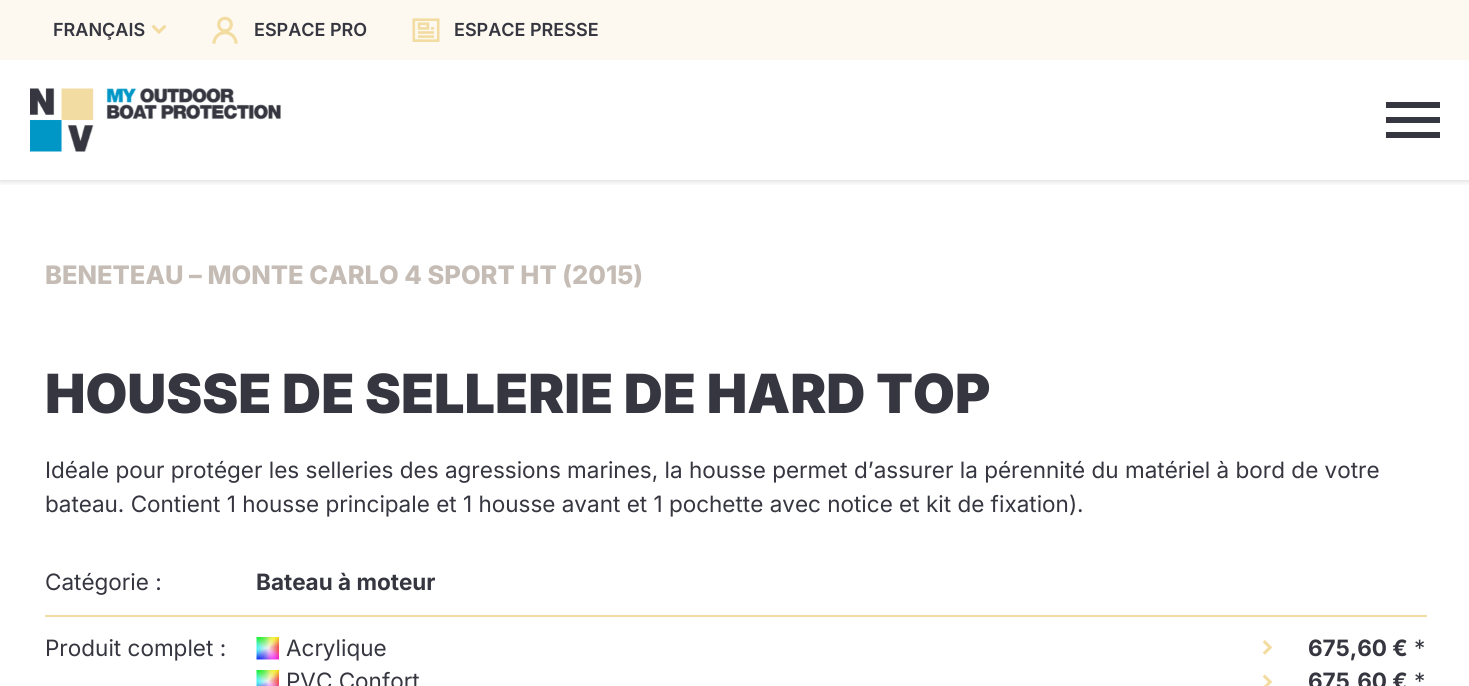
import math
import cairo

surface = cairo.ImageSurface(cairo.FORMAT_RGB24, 1469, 686)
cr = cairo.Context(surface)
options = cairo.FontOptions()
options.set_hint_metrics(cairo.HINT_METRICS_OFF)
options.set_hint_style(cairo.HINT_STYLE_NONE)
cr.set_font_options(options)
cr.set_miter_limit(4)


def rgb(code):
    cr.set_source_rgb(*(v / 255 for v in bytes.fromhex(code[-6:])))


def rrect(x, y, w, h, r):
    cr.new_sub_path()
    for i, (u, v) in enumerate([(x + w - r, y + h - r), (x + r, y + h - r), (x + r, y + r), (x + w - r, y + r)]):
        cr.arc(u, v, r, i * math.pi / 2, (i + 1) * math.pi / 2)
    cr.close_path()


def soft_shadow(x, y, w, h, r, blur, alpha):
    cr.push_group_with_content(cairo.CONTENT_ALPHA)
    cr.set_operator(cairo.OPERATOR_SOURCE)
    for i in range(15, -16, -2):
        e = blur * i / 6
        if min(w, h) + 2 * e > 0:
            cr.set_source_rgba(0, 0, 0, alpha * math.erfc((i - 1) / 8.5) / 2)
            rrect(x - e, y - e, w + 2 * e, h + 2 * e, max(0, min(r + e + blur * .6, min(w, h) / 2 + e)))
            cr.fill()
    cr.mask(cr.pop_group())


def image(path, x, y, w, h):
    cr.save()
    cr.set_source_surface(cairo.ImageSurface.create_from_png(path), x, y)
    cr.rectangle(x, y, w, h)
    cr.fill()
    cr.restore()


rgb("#ffffff")
cr.paint()
cr.save()
cr.rectangle(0, 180, 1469, 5)
cr.clip()
rgb("#000000")
soft_shadow(0, 60, 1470, 120, 0, 4, 0.2)
cr.restore()
rgb("#fdf9f0")
cr.rectangle(0, 0, 1469, 60)
cr.fill()
image("img/1.png", 151, 24, 16, 10)
image("img/2.png", 212, 16, 26, 28)
image("img/3.png", 412, 18, 28, 24)
image("img/4.png", 30, 88, 251, 64)
for x, y, w, h, color in [
    (1386, 102, 54, 6, "#35363f"),
    (1386, 117, 54, 6, "#35363f"),
    (1386, 132, 54, 6, "#35363f"),
    (45, 615, 1382, 2, "#f3dca1"),
]:
    rgb(color)
    cr.rectangle(x, y, w, h)
    cr.fill()
image("img/5.png", 256, 637, 23, 23)
image("img/6.png", 1262, 640, 11, 15)
image("img/7.png", 256, 670, 23, 16)
image("img/8.png", 1262, 674, 11, 12)
cr.select_font_face("Inter SemiBold")
cr.set_font_size(18)
rgb("#35363f")
for x, y, s in [
    (53, 36, "FRANÇAIS"),
    (254, 36, "ESPACE PRO"),
    (454, 36, "ESPACE PRESSE"),
]:
    cr.move_to(x, y)
    cr.show_text(s)
cr.select_font_face("Inter ExtraBold")
cr.set_font_size(25.5)
rgb("#c5bdb5")
cr.move_to(45, 284)
cr.show_text("BENETEAU – MONTE CARLO 4 SPORT HT (2015)")
cr.select_font_face("Inter Black")
cr.set_font_size(54)
rgb("#35363f")
cr.move_to(45, 413)
cr.show_text("HOUSSE DE SELLERIE DE HARD TOP")
cr.select_font_face("Inter")
cr.set_font_size(22.5)
for x, y, s in [
    (45, 478, "Idéale pour protéger les selleries des agressions marines, la housse permet d’assurer la pérennité du matériel à bord de votre"),
    (45, 512, "bateau. Contient 1 housse principale et 1 housse avant et 1 pochette avec notice et kit de fixation)."),
    (45, 590, "Catégorie :"),
]:
    cr.move_to(x, y)
    cr.show_text(s)
cr.select_font_face("Inter", cairo.FONT_SLANT_NORMAL, cairo.FONT_WEIGHT_BOLD)
cr.move_to(256, 590)
cr.show_text("Bateau à moteur")
cr.select_font_face("Inter")
cr.move_to(45, 656)
cr.show_text("Produit complet :")
cr.move_to(286, 656)
cr.show_text("Acrylique")
cr.select_font_face("Inter", cairo.FONT_SLANT_NORMAL, cairo.FONT_WEIGHT_BOLD)
cr.move_to(1308, 656)
cr.show_text("675,60 €")
cr.select_font_face("Inter")
cr.move_to(1414, 656)
cr.show_text("*")
cr.move_to(286, 689)
cr.show_text("PVC Confort")
cr.select_font_face("Inter", cairo.FONT_SLANT_NORMAL, cairo.FONT_WEIGHT_BOLD)
cr.move_to(1308, 689)
cr.show_text("675,60 €")
cr.select_font_face("Inter")
cr.move_to(1414, 689)
cr.show_text("*")
surface.write_to_png("page.png")
